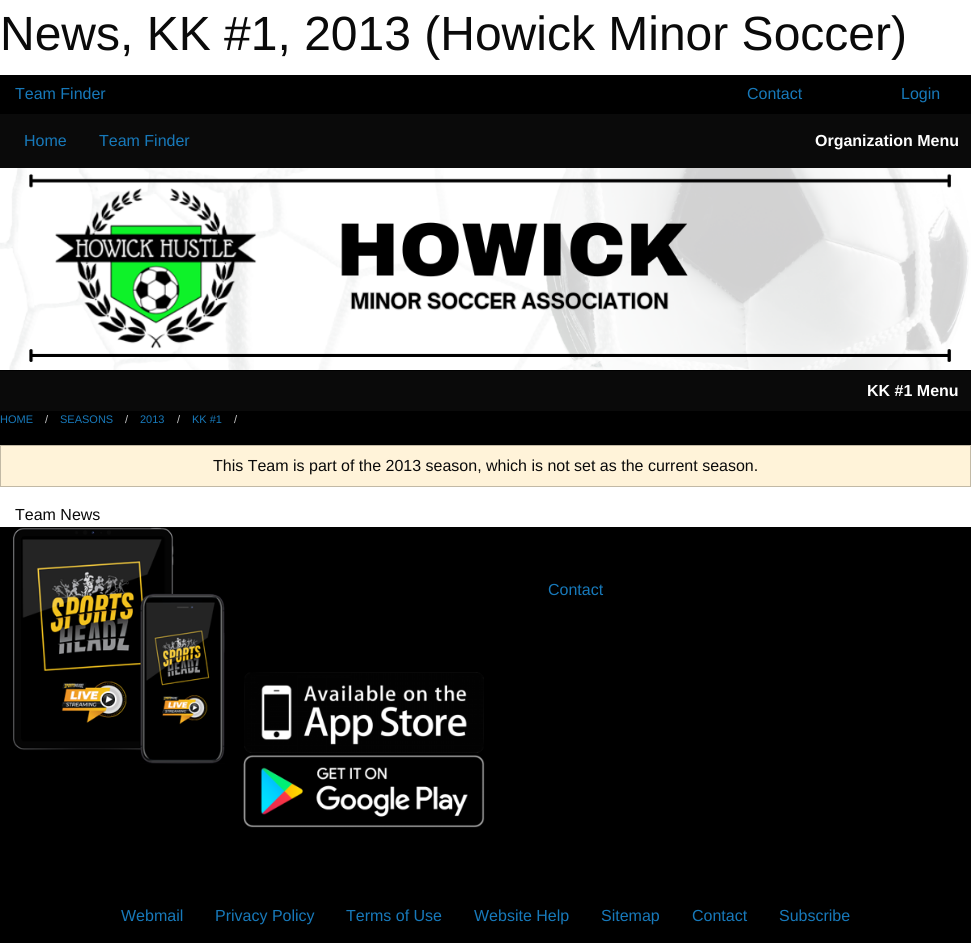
import math
import cairo

surface = cairo.ImageSurface(cairo.FORMAT_RGB24, 971, 943)
cr = cairo.Context(surface)
options = cairo.FontOptions()
options.set_hint_metrics(cairo.HINT_METRICS_OFF)
options.set_hint_style(cairo.HINT_STYLE_NONE)
cr.set_font_options(options)
cr.set_miter_limit(4)


def rgb(code):
    cr.set_source_rgb(*(v / 255 for v in bytes.fromhex(code[-6:])))


def image(path, x, y, w, h):
    cr.save()
    cr.set_source_surface(cairo.ImageSurface.create_from_png(path), x, y)
    cr.rectangle(x, y, w, h)
    cr.fill()
    cr.restore()


rgb("#ffffff")
cr.paint()
rgb("#000000")
cr.rectangle(0, 75, 971, 868)
cr.fill()
rgb("#0a0a0a")
cr.rectangle(0, 114, 971, 54)
cr.fill()
image("img/1.png", 0, 168, 971, 202)
cr.rectangle(0, 371, 971, 40)
cr.fill()
rgb("#ffffff")
cr.rectangle(0, 487, 971, 40)
cr.fill()
rgb("#fff3d9")
cr.rectangle(0.5, 445.5, 970, 41)
cr.fill_preserve()
rgb("#c2b9a5")
cr.set_line_width(1)
cr.stroke()
image("img/2.png", 13, 527, 212, 237)
image("img/3.png", 244, 672, 240, 81)
image("img/4.png", 243, 755, 242, 73)
cr.select_font_face("Liberation Sans")
cr.set_font_size(48)
rgb("#0a0a0a")
cr.move_to(0, 50)
cr.show_text("News, KK #1, 2013 (Howick Minor Soccer)")
cr.set_font_size(16)
rgb("#1779ba")
for x, y, s in [
    (15, 99, "Team Finder"),
    (747, 99, "Contact"),
    (901, 99, "Login"),
    (24, 146, "Home"),
    (99, 146, "Team Finder"),
]:
    cr.move_to(x, y)
    cr.show_text(s)
cr.select_font_face("Liberation Sans", cairo.FONT_SLANT_NORMAL, cairo.FONT_WEIGHT_BOLD)
rgb("#fefefe")
cr.move_to(815, 146)
cr.show_text("Organization Menu")
cr.move_to(867, 396)
cr.show_text("KK #1 Menu")
cr.select_font_face("Liberation Sans")
cr.set_font_size(11)
rgb("#1779ba")
cr.move_to(0, 423)
cr.show_text("HOME")
rgb("#cacaca")
cr.move_to(45, 423)
cr.show_text("/")
rgb("#1779ba")
cr.move_to(60, 423)
cr.show_text("SEASONS")
rgb("#cacaca")
cr.move_to(125, 423)
cr.show_text("/")
rgb("#1779ba")
cr.move_to(140, 423)
cr.show_text("2013")
rgb("#cacaca")
cr.move_to(177, 423)
cr.show_text("/")
rgb("#1779ba")
cr.move_to(192, 423)
cr.show_text("KK #1")
rgb("#cacaca")
cr.move_to(234, 423)
cr.show_text("/")
cr.set_font_size(16)
rgb("#0a0a0a")
cr.move_to(213, 471)
cr.show_text("This Team is part of the 2013 season, which is not set as the current season.")
cr.move_to(15, 520)
cr.show_text("Team News")
rgb("#1779ba")
for x, y, s in [
    (548, 595, "Contact"),
    (121, 921, "Webmail"),
    (215, 921, "Privacy Policy"),
    (346, 921, "Terms of Use"),
    (474, 921, "Website Help"),
    (601, 921, "Sitemap"),
    (692, 921, "Contact"),
    (779, 921, "Subscribe"),
]:
    cr.move_to(x, y)
    cr.show_text(s)
surface.write_to_png("page.png")
